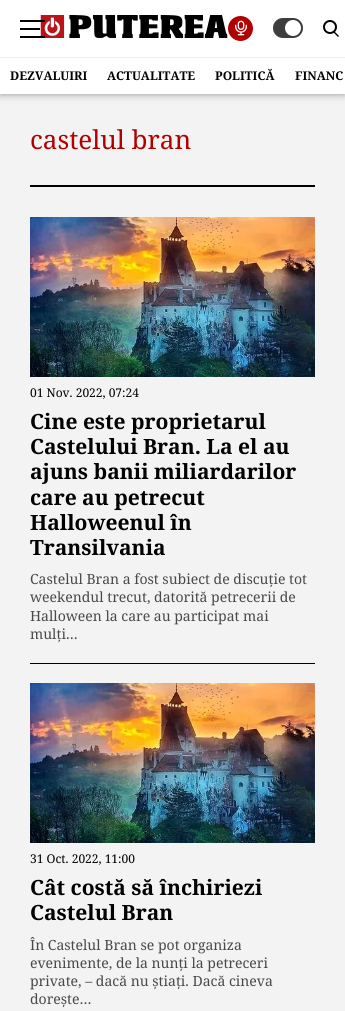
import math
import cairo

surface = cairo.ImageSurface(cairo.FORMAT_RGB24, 345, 1011)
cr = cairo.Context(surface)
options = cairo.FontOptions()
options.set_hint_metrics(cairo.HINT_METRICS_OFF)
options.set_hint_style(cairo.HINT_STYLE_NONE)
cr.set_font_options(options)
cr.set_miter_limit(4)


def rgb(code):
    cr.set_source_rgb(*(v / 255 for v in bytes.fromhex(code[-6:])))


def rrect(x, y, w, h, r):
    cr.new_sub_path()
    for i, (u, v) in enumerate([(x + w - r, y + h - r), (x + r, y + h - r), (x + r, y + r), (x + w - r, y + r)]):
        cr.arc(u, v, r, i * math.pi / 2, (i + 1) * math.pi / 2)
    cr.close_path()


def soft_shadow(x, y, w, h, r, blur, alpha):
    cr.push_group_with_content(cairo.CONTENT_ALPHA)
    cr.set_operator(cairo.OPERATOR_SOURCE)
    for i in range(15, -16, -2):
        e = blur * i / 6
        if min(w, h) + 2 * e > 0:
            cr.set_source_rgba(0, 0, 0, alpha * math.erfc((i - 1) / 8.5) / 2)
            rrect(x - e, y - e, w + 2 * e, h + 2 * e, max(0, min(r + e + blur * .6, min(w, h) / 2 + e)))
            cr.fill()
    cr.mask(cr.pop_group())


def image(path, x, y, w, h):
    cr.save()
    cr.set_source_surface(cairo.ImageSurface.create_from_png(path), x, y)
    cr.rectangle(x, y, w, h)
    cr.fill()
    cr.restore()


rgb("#f3f3f3")
cr.paint()
rgb("#000000")
soft_shadow(0, 0, 345, 94, 0, 4, 0.4)
rgb("#ffffff")
cr.rectangle(0, 0, 345, 94)
cr.fill()
rgb("#000000")
cr.rectangle(20, 28, 20, 2)
cr.fill()
image("img/1.png", 40, 15, 188, 23)
cr.rectangle(20, 20, 25, 2)
cr.fill()
cr.rectangle(20, 36, 25, 2)
cr.fill()
rgb("#b20000")
cr.arc(240.5, 28.5, 12.5, 0, 2 * math.pi)
cr.fill()
image("img/2.png", 235, 20, 12, 16)
rgb("#3d3d3d")
rrect(273, 18, 30, 20, 10)
cr.fill()
rrect(274, 19, 28, 18, 9)
cr.set_source_rgba(0.267, 0.267, 0.267, 0.27)
cr.stroke()
rgb("#ffffff")
cr.arc(293, 28, 8, 0, 2 * math.pi)
cr.fill()
cr.arc(330, 27, 6, 0, 2 * math.pi)
rgb("#000000")
cr.stroke()
cr.new_path()
cr.move_to(333, 32)
cr.line_to(334, 31)
cr.line_to(339, 36)
cr.line_to(338, 37)
cr.close_path()
cr.fill()
rgb("#efefef")
cr.rectangle(0, 57, 345, 1)
cr.fill()
rgb("#000000")
cr.rectangle(30, 185, 285, 2)
cr.fill()
image("img/3.png", 30, 217, 285, 160)
cr.rectangle(30, 663, 285, 1)
cr.fill()
image("img/3.png", 30, 683, 285, 160)
cr.select_font_face("Noto Serif", cairo.FONT_SLANT_NORMAL, cairo.FONT_WEIGHT_BOLD)
cr.set_font_size(12)
for x, y, s in [
    (10, 80, "DEZVALUIRI"),
    (107, 80, "ACTUALITATE"),
    (215, 80, "POLITICĂ"),
    (295, 80, "FINANC"),
]:
    cr.move_to(x, y)
    cr.show_text(s)
cr.select_font_face("Noto Serif")
cr.set_font_size(26)
rgb("#b20000")
cr.move_to(30, 149)
cr.show_text("castelul bran")
cr.set_font_size(12)
rgb("#000000")
cr.move_to(30, 397)
cr.show_text("01 Nov. 2022, 07:24")
cr.select_font_face("Noto Serif", cairo.FONT_SLANT_NORMAL, cairo.FONT_WEIGHT_BOLD)
cr.set_font_size(21)
for x, y, s in [
    (30, 429, "Cine este proprietarul"),
    (30, 454, "Castelului Bran. La el au"),
    (30, 479, "ajuns banii miliardarilor"),
    (30, 505, "care au petrecut"),
    (30, 530, "Halloweenul în"),
    (30, 555, "Transilvania"),
]:
    cr.move_to(x, y)
    cr.show_text(s)
cr.select_font_face("Noto Serif")
cr.set_font_size(14)
rgb("#494949")
for x, y, s in [
    (30, 584, "Castelul Bran a fost subiect de discuție tot"),
    (30, 602, "weekendul trecut, datorită petrecerii de"),
    (30, 621, "Halloween la care au participat mai"),
    (30, 639, "mulți…"),
]:
    cr.move_to(x, y)
    cr.show_text(s)
cr.set_font_size(12)
rgb("#000000")
cr.move_to(30, 863)
cr.show_text("31 Oct. 2022, 11:00")
cr.select_font_face("Noto Serif", cairo.FONT_SLANT_NORMAL, cairo.FONT_WEIGHT_BOLD)
cr.set_font_size(21)
cr.move_to(30, 895)
cr.show_text("Cât costă să închiriezi")
cr.move_to(30, 920)
cr.show_text("Castelul Bran")
cr.select_font_face("Noto Serif")
cr.set_font_size(14)
rgb("#494949")
for x, y, s in [
    (30, 950, "În Castelul Bran se pot organiza"),
    (30, 968, "evenimente, de la nunți la petreceri"),
    (30, 986, "private, – dacă nu știați. Dacă cineva"),
    (30, 1004, "dorește…"),
]:
    cr.move_to(x, y)
    cr.show_text(s)
surface.write_to_png("page.png")
